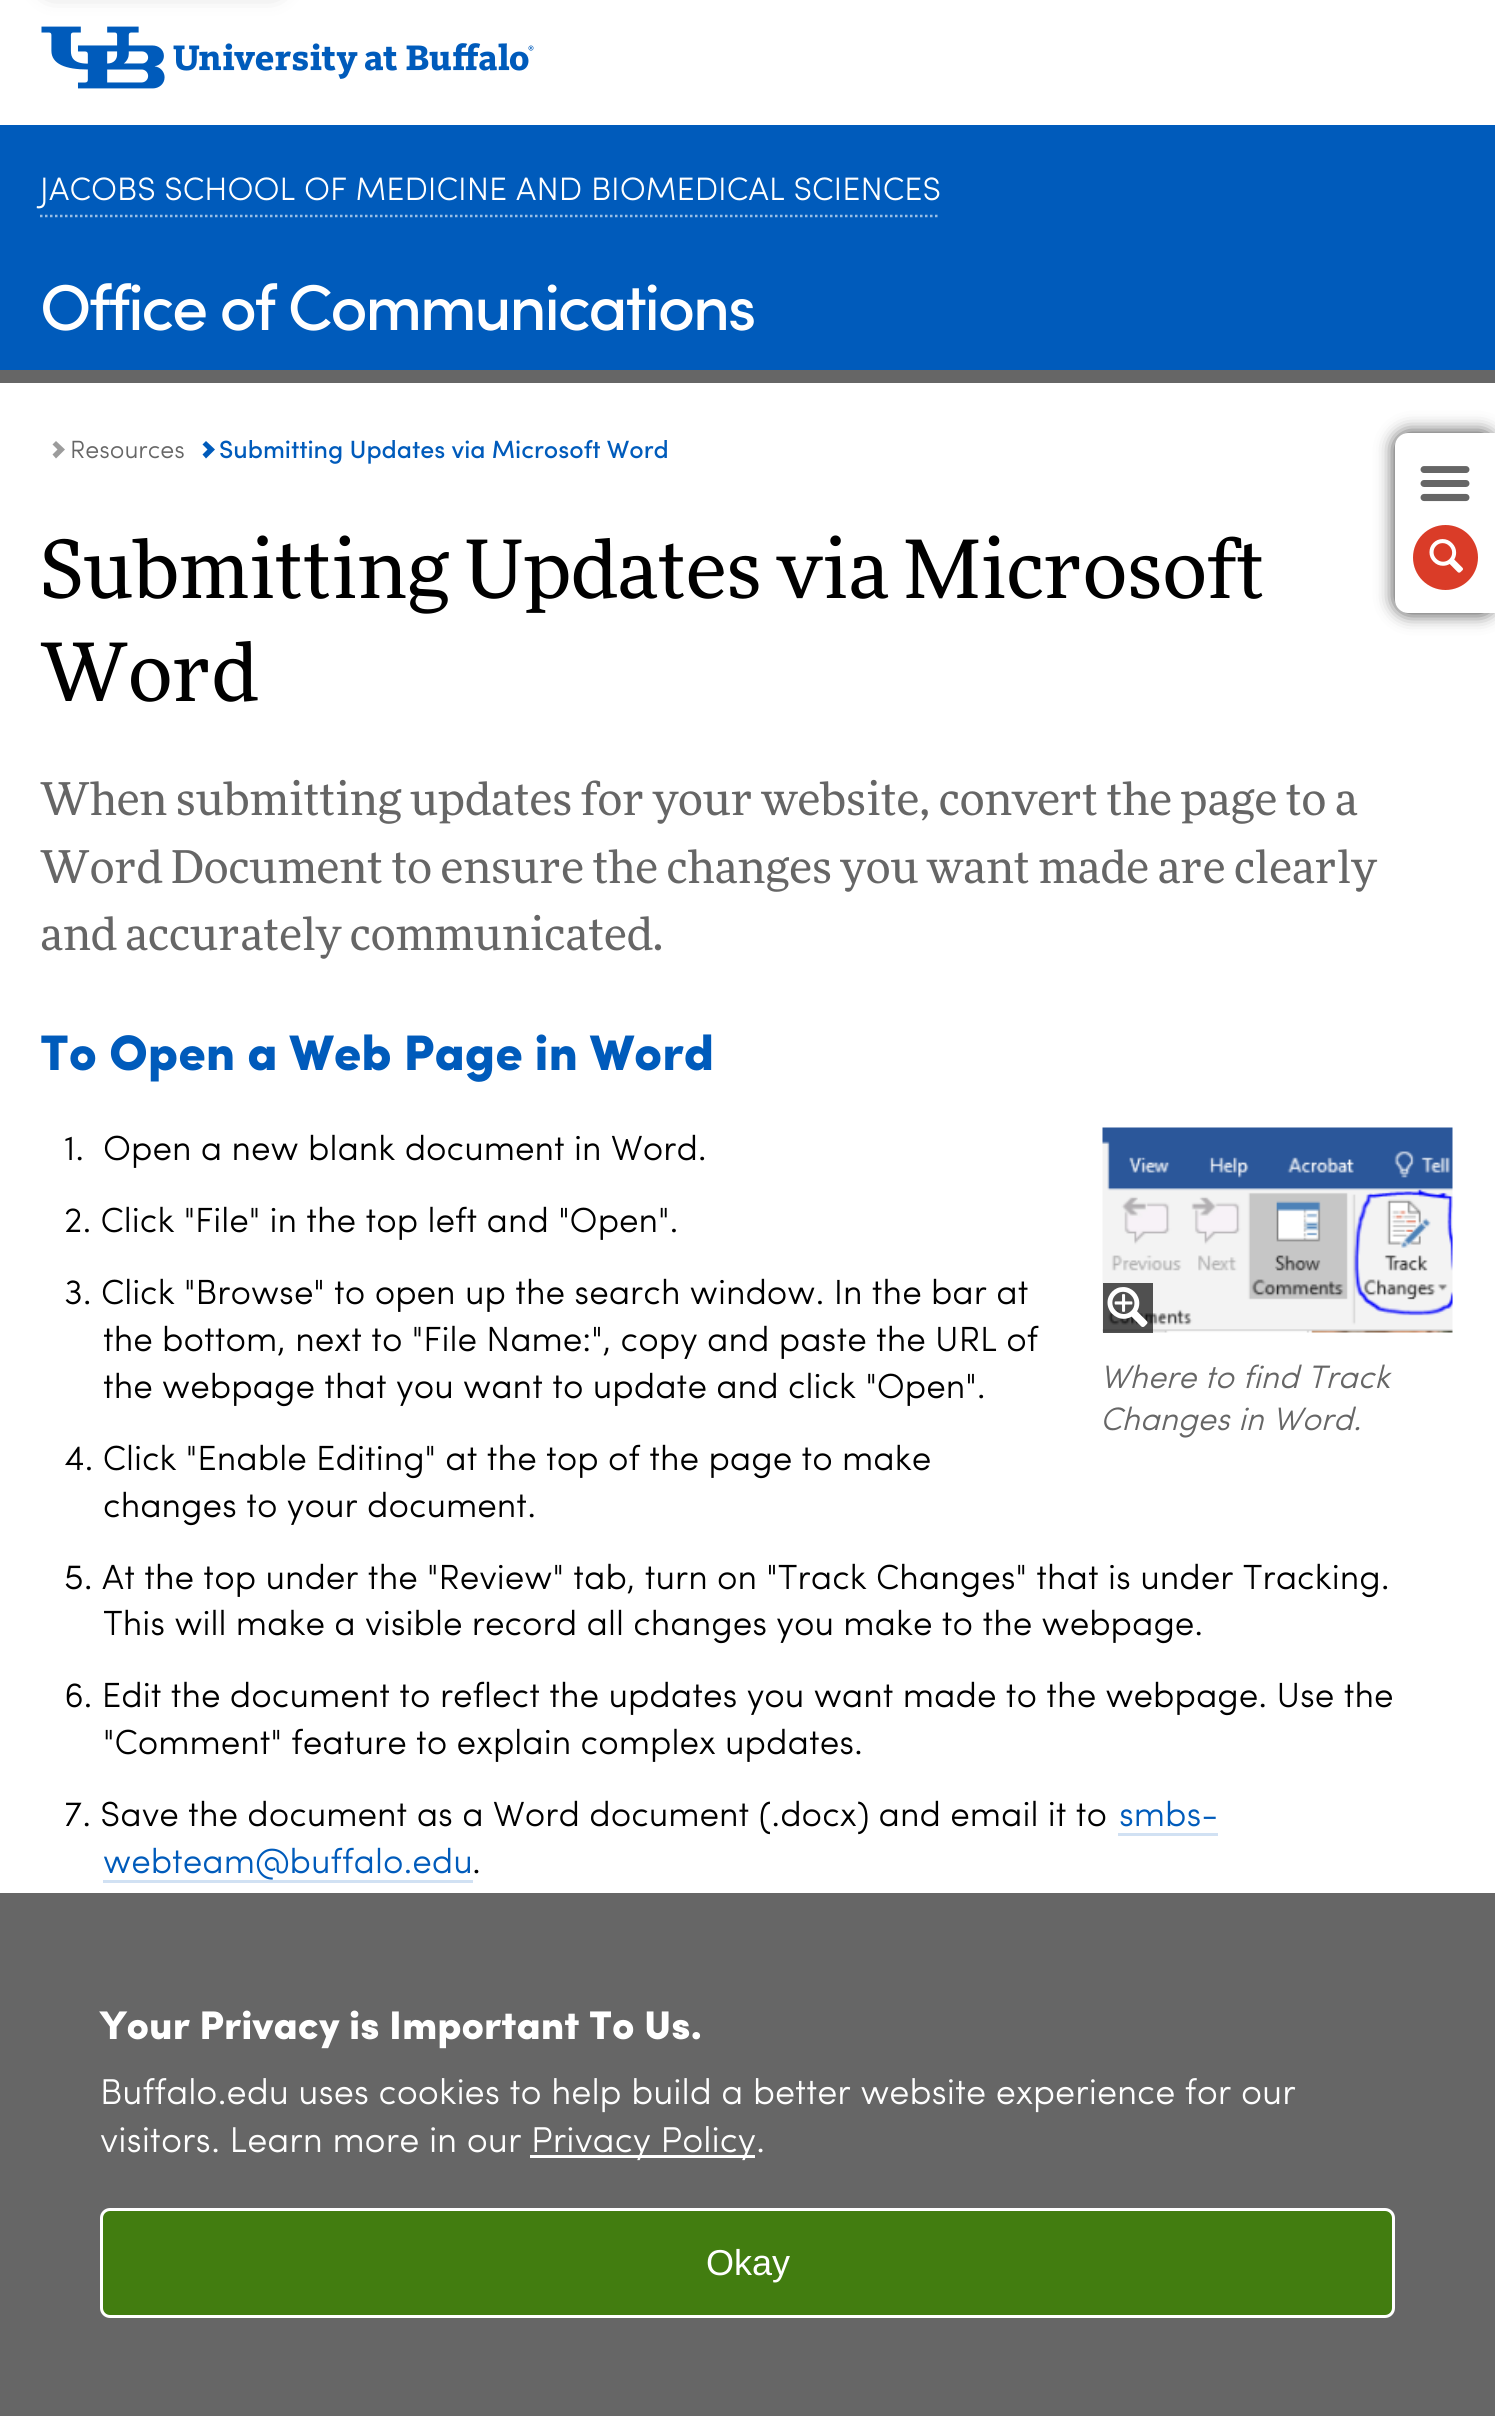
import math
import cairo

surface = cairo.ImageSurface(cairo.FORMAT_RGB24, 1495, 2416)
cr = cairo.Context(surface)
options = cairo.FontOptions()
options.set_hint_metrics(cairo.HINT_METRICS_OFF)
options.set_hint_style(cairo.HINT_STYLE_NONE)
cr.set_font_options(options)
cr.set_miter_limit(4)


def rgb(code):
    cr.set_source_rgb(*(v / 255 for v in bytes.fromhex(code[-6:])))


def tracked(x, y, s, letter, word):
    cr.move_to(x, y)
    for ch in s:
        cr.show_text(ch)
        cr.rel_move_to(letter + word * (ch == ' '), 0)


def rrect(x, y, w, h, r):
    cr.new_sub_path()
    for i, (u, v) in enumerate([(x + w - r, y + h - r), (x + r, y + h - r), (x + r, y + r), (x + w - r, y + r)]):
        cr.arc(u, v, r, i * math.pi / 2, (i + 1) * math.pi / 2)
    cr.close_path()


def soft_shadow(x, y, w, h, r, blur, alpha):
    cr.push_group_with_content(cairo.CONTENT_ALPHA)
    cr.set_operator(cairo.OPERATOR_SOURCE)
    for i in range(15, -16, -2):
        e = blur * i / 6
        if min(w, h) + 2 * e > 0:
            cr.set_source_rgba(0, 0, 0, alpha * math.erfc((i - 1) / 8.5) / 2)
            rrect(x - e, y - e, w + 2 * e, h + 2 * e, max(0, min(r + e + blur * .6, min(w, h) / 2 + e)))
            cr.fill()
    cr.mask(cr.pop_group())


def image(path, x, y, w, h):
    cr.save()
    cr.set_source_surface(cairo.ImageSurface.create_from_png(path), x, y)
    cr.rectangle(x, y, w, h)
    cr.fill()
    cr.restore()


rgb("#ffffff")
cr.paint()
rgb("#000000")
soft_shadow(50, -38, 225, 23, 0, 12.5, 0.5)
image("img/1.png", 41, 26, 493, 63)
rgb("#005bbb")
cr.rectangle(0, 125, 1495, 245)
cr.fill()
cr.new_path()
cr.move_to(40, 216)
cr.line_to(940, 216)
rgb("#99bde4")
cr.set_line_width(2.5)
cr.set_dash([2.5, 2.5])
cr.stroke()
rgb("#666666")
cr.rectangle(0, 370, 1495, 13)
cr.fill()
rgb("#333333")
soft_shadow(1395, 433, 100, 180, 13, 9, 1)
rgb("#ffffff")
cr.new_path()
cr.move_to(1408, 433)
cr.line_to(1495, 433)
cr.line_to(1495, 613)
cr.line_to(1408, 613)
cr.curve_to(1401, 613, 1395, 607, 1395, 600)
cr.line_to(1395, 446)
cr.curve_to(1395, 439, 1401, 433, 1408, 433)
cr.close_path()
cr.fill()
image("img/2.png", 1420, 466, 50, 36)
rgb("#da3c28")
cr.arc(1445.5, 557.5, 32.5, 0, 2 * math.pi)
cr.fill()
image("img/3.png", 1429, 539, 34, 34)
rgb("#9c9c9c")
cr.new_path()
cr.move_to(65, 449.5)
cr.line_to(56, 458.5)
cr.line_to(52.5, 454.5)
cr.line_to(57.5, 449.5)
cr.line_to(52.5, 444.5)
cr.line_to(56, 441)
cr.close_path()
cr.fill()
rgb("#005bbb")
cr.new_path()
cr.move_to(215, 449.5)
cr.line_to(206, 458.5)
cr.line_to(202.5, 454.5)
cr.line_to(207.5, 449.5)
cr.line_to(202.5, 444.5)
cr.line_to(206, 441)
cr.close_path()
cr.fill()
rgb("#d1e1f3")
cr.rectangle(1118, 1833, 100, 3)
cr.fill()
cr.rectangle(103, 1880, 370, 3)
cr.fill()
image("img/4.png", 1102, 1127, 351, 206)
cr.set_source_rgba(0, 0, 0, 0.67)
cr.rectangle(1103, 1283, 50, 50)
cr.fill()
image("img/5.png", 1107, 1287, 41, 40)
rgb("#666666")
cr.rectangle(0, 1893, 1495, 523)
cr.fill()
rgb("#ffffff")
cr.rectangle(530, 2155, 225, 3)
cr.fill()
rgb("#427d10")
rrect(101.5, 2209.5, 1292, 107, 8.5)
cr.fill_preserve()
rgb("#ffffff")
cr.set_line_width(3)
cr.set_dash([])
cr.stroke()
cr.select_font_face("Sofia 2")
cr.set_font_size(32.5)
cr.move_to(40, 200)
cr.show_text("JACOBS SCHOOL OF MEDICINE AND BIOMEDICAL SCIENCES")
cr.select_font_face("Sofia Medium")
cr.set_font_size(65)
tracked(40, 330, "Office of Communications", -2.5, 0)
cr.select_font_face("Sofia 2")
cr.set_font_size(25)
rgb("#666666")
cr.move_to(70, 458)
cr.show_text("Resources")
cr.select_font_face("Sofia Medium")
rgb("#005bbb")
cr.move_to(219, 458)
cr.show_text("Submitting Updates via Microsoft Word")
cr.select_font_face("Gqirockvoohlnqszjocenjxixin")
cr.set_font_size(80)
rgb("#000000")
cr.move_to(40, 598)
cr.show_text("Submitting Updates via Microsoft")
cr.move_to(40, 701)
cr.show_text("Word")
cr.set_font_size(45)
rgb("#666666")
for x, y, s in [
    (40, 815, "When submitting updates for your website, convert the page to a"),
    (40, 883, "Word Document to ensure the changes you want made are clearly"),
    (40, 950, "and accurately communicated."),
]:
    cr.move_to(x, y)
    cr.show_text(s)
cr.select_font_face("Sofia")
cr.set_font_size(50)
rgb("#005bbb")
cr.move_to(40, 1070)
cr.show_text("To Open a Web Page in Word")
cr.select_font_face("Sofia 2")
cr.set_font_size(35)
rgb("#000000")
for x, y, s in [
    (64, 1160, "1."),
    (103, 1160, "Open a new blank document in Word."),
    (64, 1232, "2. Click \"File\" in the top left and \"Open\"."),
    (64, 1304, "3. Click \"Browse\" to open up the search window. In the bar at"),
    (103, 1351, "the bottom, next to \"File Name:\", copy and paste the URL of"),
    (103, 1398, "the webpage that you want to update and click \"Open\"."),
    (64, 1470, "4. Click \"Enable Editing\" at the top of the page to make"),
    (103, 1517, "changes to your document."),
    (64, 1589, "5. At the top under the \"Review\" tab, turn on \"Track Changes\" that is under Tracking."),
    (103, 1635, "This will make a visible record all changes you make to the webpage."),
    (64, 1707, "6. Edit the document to reflect the updates you want made to the webpage. Use the"),
    (103, 1754, "\"Comment\" feature to explain complex updates."),
    (64, 1826, "7. Save the document as a Word document (.docx) and email it to"),
]:
    cr.move_to(x, y)
    cr.show_text(s)
rgb("#005bbb")
cr.move_to(1119, 1826)
cr.show_text("smbs-")
cr.move_to(103, 1873)
cr.show_text("webteam@buffalo.edu")
rgb("#000000")
cr.move_to(472, 1873)
cr.show_text(".")
cr.select_font_face("Sofia", cairo.FONT_SLANT_ITALIC)
cr.set_font_size(32.5)
rgb("#666666")
cr.move_to(1100, 1388)
cr.show_text("Where to find Track")
cr.move_to(1100, 1430)
cr.show_text("Changes in Word.")
cr.select_font_face("Sofia")
cr.set_font_size(40)
rgb("#ffffff")
cr.move_to(100, 2039)
cr.show_text("Your Privacy is Important To Us.")
cr.select_font_face("Sofia 2")
cr.set_font_size(36)
for x, y, s in [
    (100, 2104, "Buffalo.edu uses cookies to help build a better website experience for our"),
    (100, 2152, "visitors. Learn more in our"),
    (531, 2152, "Privacy Policy."),
]:
    cr.move_to(x, y)
    cr.show_text(s)
cr.select_font_face("Liberation Sans")
cr.move_to(706, 2275)
cr.show_text("Okay")
surface.write_to_png("page.png")
